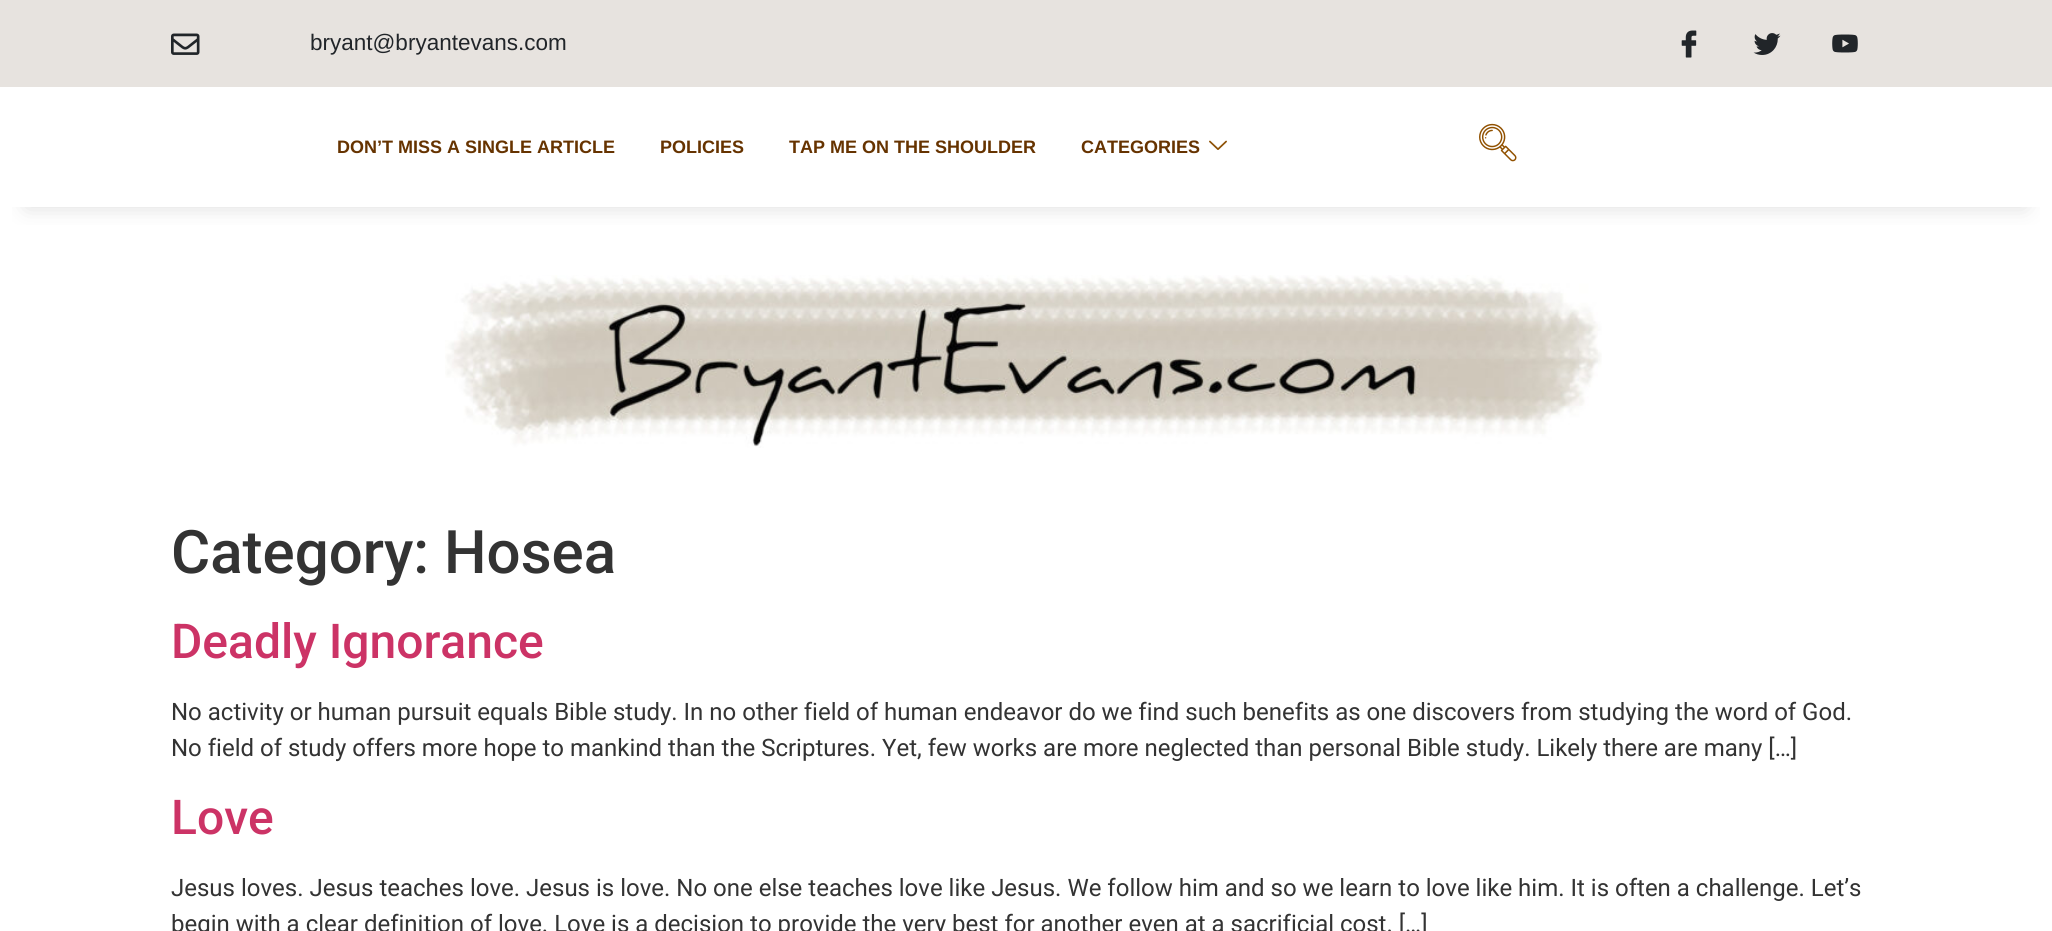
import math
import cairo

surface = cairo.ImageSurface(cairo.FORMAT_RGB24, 2052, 931)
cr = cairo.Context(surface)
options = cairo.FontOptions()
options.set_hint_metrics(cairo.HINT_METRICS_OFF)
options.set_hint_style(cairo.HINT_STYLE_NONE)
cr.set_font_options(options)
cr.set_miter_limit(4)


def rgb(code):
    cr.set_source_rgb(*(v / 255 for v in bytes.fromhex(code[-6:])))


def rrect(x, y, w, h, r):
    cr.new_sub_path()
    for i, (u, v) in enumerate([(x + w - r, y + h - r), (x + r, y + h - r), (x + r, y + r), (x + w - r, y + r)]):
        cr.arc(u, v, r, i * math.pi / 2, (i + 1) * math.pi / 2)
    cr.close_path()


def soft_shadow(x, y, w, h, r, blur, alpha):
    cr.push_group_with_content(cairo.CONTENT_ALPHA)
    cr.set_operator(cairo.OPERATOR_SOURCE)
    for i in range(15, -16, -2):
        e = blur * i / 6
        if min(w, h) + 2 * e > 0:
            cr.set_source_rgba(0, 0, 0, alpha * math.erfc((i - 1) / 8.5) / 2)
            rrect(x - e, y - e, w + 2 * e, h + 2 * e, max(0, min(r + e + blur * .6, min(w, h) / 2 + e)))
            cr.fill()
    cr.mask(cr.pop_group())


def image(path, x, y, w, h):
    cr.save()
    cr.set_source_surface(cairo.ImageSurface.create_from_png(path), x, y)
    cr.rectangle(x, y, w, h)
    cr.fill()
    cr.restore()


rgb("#ffffff")
cr.paint()
rgb("#e7e3df")
cr.rectangle(0, 0, 2052, 87)
cr.fill()
image("img/1.png", 171, 33, 29, 22)
image("img/2.png", 1681, 30, 16, 28)
image("img/3.png", 1753, 33, 28, 22)
image("img/4.png", 1832, 34, 26, 19)
cr.save()
cr.rectangle(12, 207, 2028, 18)
cr.clip()
rgb("#b3b3b3")
soft_shadow(27, 140, 1998, 66, 0, 11, 0.5)
cr.restore()
image("img/5.png", 1209, 140, 18, 10)
image("img/6.png", 1479, 123, 38, 39)
image("img/7.png", 445, 275, 1157, 173)
cr.select_font_face("Liberation Sans")
cr.set_font_size(22.5)
rgb("#212529")
cr.move_to(310, 50)
cr.show_text("bryant@bryantevans.com")
cr.select_font_face("Liberation Sans", cairo.FONT_SLANT_NORMAL, cairo.FONT_WEIGHT_BOLD)
cr.set_font_size(18)
rgb("#663300")
for x, y, s in [
    (337, 153, "DON’T MISS A SINGLE ARTICLE"),
    (660, 153, "POLICIES"),
    (789, 153, "TAP ME ON THE SHOULDER"),
    (1081, 153, "CATEGORIES"),
]:
    cr.move_to(x, y)
    cr.show_text(s)
cr.select_font_face("Roboto Medium")
cr.set_font_size(60)
rgb("#333333")
cr.move_to(171, 573)
cr.show_text("Category: Hosea")
cr.set_font_size(48)
rgb("#cc3366")
cr.move_to(171, 658)
cr.show_text("Deadly Ignorance")
cr.select_font_face("Roboto")
cr.set_font_size(24)
rgb("#333333")
cr.move_to(171, 720)
cr.show_text("No activity or human pursuit equals Bible study. In no other field of human endeavor do we find such benefits as one discovers from studying the word of God.")
cr.move_to(171, 756)
cr.show_text("No field of study offers more hope to mankind than the Scriptures. Yet, few works are more neglected than personal Bible study. Likely there are many […]")
cr.select_font_face("Roboto Medium")
cr.set_font_size(48)
rgb("#cc3366")
cr.move_to(171, 834)
cr.show_text("Love")
cr.select_font_face("Roboto")
cr.set_font_size(24)
rgb("#333333")
cr.move_to(171, 896)
cr.show_text("Jesus loves. Jesus teaches love. Jesus is love. No one else teaches love like Jesus. We follow him and so we learn to love like him. It is often a challenge. Let’s")
cr.move_to(171, 932)
cr.show_text("begin with a clear definition of love. Love is a decision to provide the very best for another even at a sacrificial cost. […]")
surface.write_to_png("page.png")
